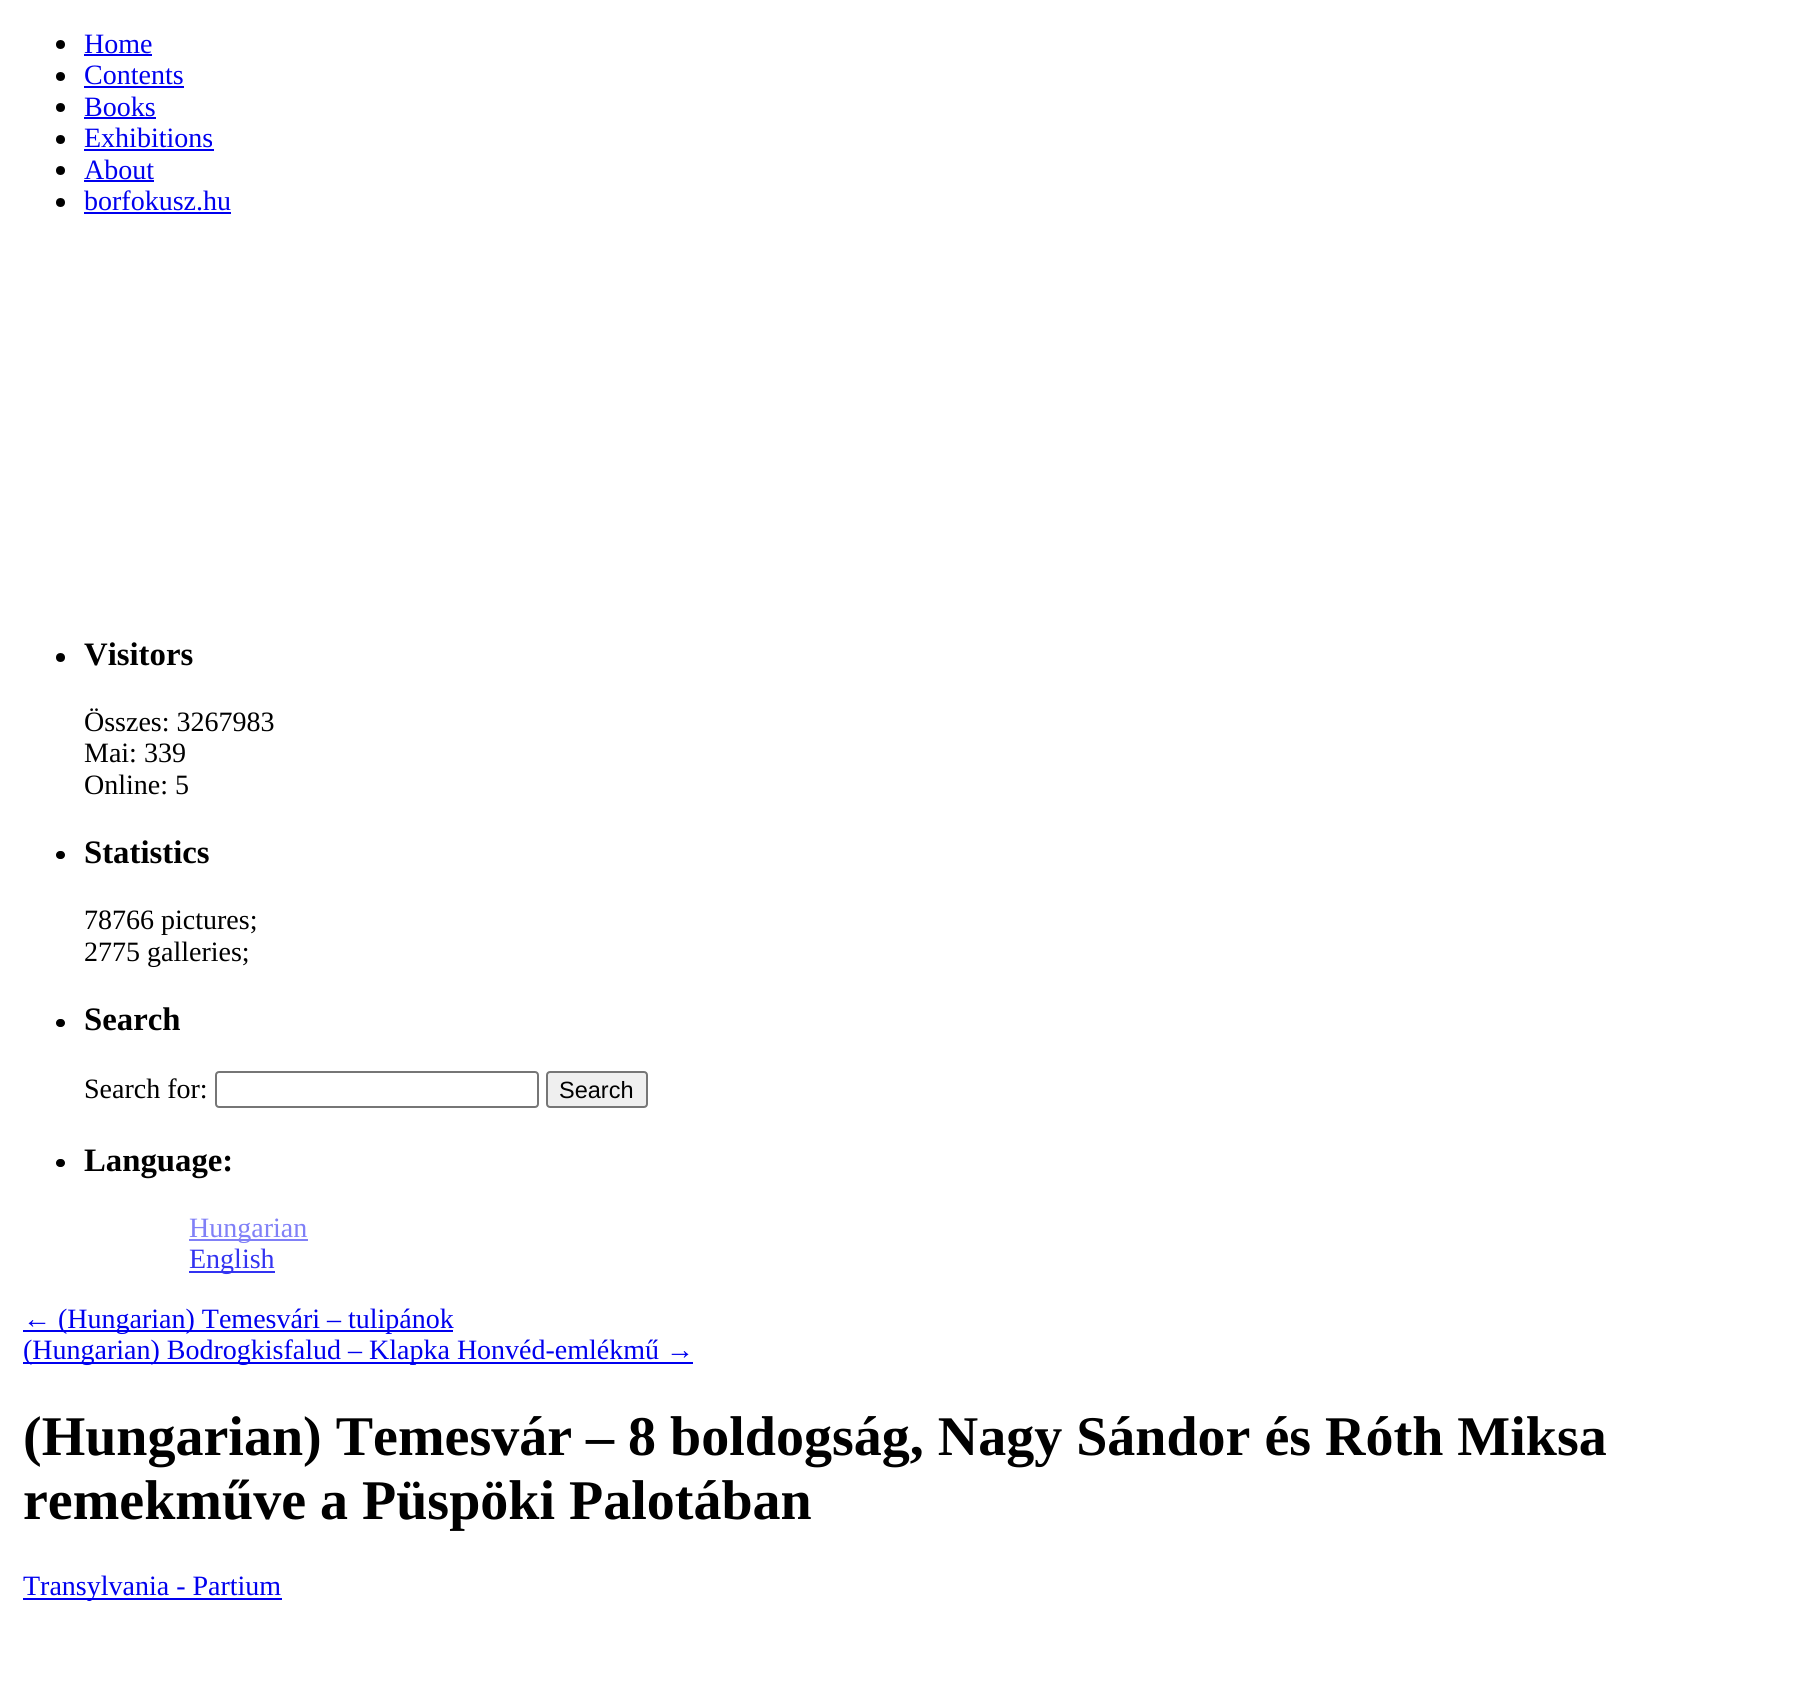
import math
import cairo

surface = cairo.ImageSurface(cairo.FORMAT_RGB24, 1808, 1706)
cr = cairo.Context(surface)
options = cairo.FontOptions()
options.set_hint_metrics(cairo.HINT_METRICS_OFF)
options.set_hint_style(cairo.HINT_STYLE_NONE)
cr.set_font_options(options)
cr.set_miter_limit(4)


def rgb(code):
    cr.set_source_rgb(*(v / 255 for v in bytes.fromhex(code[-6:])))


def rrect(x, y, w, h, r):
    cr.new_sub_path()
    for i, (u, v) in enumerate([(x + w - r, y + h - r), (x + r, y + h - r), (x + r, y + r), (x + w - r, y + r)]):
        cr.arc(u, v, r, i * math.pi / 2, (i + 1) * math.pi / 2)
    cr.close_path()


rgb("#ffffff")
cr.paint()
rgb("#000000")
cr.arc(60.5, 44.5, 4.5, 0, 2 * math.pi)
cr.fill()
rgb("#0000ee")
cr.rectangle(84, 54, 68, 2)
cr.fill()
rgb("#000000")
cr.arc(60.5, 76.5, 4.5, 0, 2 * math.pi)
cr.fill()
rgb("#0000ee")
cr.rectangle(84, 86, 100, 2)
cr.fill()
rgb("#000000")
cr.arc(60.5, 107.5, 4.5, 0, 2 * math.pi)
cr.fill()
rgb("#0000ee")
cr.rectangle(84, 117, 72, 2)
cr.fill()
rgb("#000000")
cr.arc(60.5, 139.5, 4.5, 0, 2 * math.pi)
cr.fill()
rgb("#0000ee")
cr.rectangle(84, 149, 130, 2)
cr.fill()
rgb("#000000")
cr.arc(60.5, 170.5, 4.5, 0, 2 * math.pi)
cr.fill()
rgb("#0000ee")
cr.rectangle(84, 180, 70, 2)
cr.fill()
rgb("#000000")
cr.arc(60.5, 202.5, 4.5, 0, 2 * math.pi)
cr.fill()
rgb("#0000ee")
cr.rectangle(84, 212, 147, 2)
cr.fill()
rgb("#000000")
cr.arc(60.5, 657.5, 4.5, 0, 2 * math.pi)
cr.fill()
rrect(56, 851, 9, 8, 4)
cr.fill()
rrect(56, 1019, 9, 8, 4)
cr.fill()
rrect(216, 1072, 322, 35, 3)
rgb("#767676")
cr.stroke()
rgb("#efefef")
rrect(547, 1072, 100, 35, 3)
cr.fill_preserve()
rgb("#767676")
cr.stroke()
rgb("#000000")
rrect(56, 1159, 9, 8, 4)
cr.fill()
for x, y, w, h, color in [
    (189, 1239, 119, 2, "#8080f7"),
    (189, 1271, 86, 2, "#3333f1"),
    (23, 1330, 430, 2, "#0000ee"),
    (23, 1362, 670, 2, "#0000ee"),
    (23, 1598, 259, 2, "#0000ee"),
]:
    rgb(color)
    cr.rectangle(x, y, w, h)
    cr.fill()
cr.select_font_face("Liberation Serif")
cr.set_font_size(28)
for x, y, s in [
    (84, 53, "Home"),
    (84, 84, "Contents"),
    (84, 116, "Books"),
    (84, 147, "Exhibitions"),
    (84, 179, "About"),
    (84, 210, "borfokusz.hu"),
]:
    cr.move_to(x, y)
    cr.show_text(s)
cr.select_font_face("Liberation Serif", cairo.FONT_SLANT_NORMAL, cairo.FONT_WEIGHT_BOLD)
cr.set_font_size(32.75)
rgb("#000000")
cr.move_to(84, 665)
cr.show_text("Visitors")
cr.select_font_face("Liberation Serif")
cr.set_font_size(28)
for x, y, s in [
    (84, 731, "Összes: 3267983"),
    (84, 762, "Mai: 339"),
    (84, 794, "Online: 5"),
]:
    cr.move_to(x, y)
    cr.show_text(s)
cr.select_font_face("Liberation Serif", cairo.FONT_SLANT_NORMAL, cairo.FONT_WEIGHT_BOLD)
cr.set_font_size(32.75)
cr.move_to(84, 863)
cr.show_text("Statistics")
cr.select_font_face("Liberation Serif")
cr.set_font_size(28)
cr.move_to(84, 929)
cr.show_text("78766 pictures;")
cr.move_to(84, 961)
cr.show_text("2775 galleries;")
cr.select_font_face("Liberation Serif", cairo.FONT_SLANT_NORMAL, cairo.FONT_WEIGHT_BOLD)
cr.set_font_size(32.75)
cr.move_to(84, 1030)
cr.show_text("Search")
cr.select_font_face("Liberation Serif")
cr.set_font_size(28)
cr.move_to(84, 1098)
cr.show_text("Search for:")
cr.select_font_face("Liberation Sans")
cr.set_font_size(23.5)
cr.move_to(559, 1098)
cr.show_text("Search")
cr.select_font_face("Liberation Serif", cairo.FONT_SLANT_NORMAL, cairo.FONT_WEIGHT_BOLD)
cr.set_font_size(32.75)
cr.move_to(84, 1171)
cr.show_text("Language:")
cr.select_font_face("Liberation Serif")
cr.set_font_size(28)
rgb("#8080f7")
cr.move_to(189, 1237)
cr.show_text("Hungarian")
rgb("#3333f1")
cr.move_to(189, 1268)
cr.show_text("English")
rgb("#0000ee")
cr.move_to(23, 1328)
cr.show_text("← (Hungarian) Temesvári – tulipánok")
cr.move_to(23, 1359)
cr.show_text("(Hungarian) Bodrogkisfalud – Klapka Honvéd-emlékmű →")
cr.select_font_face("Liberation Serif", cairo.FONT_SLANT_NORMAL, cairo.FONT_WEIGHT_BOLD)
cr.set_font_size(56)
rgb("#000000")
cr.move_to(23, 1455)
cr.show_text("(Hungarian) Temesvár – 8 boldogság, Nagy Sándor és Róth Miksa")
cr.move_to(23, 1519)
cr.show_text("remekműve a Püspöki Palotában")
cr.select_font_face("Liberation Serif")
cr.set_font_size(28)
rgb("#0000ee")
cr.move_to(23, 1595)
cr.show_text("Transylvania - Partium")
surface.write_to_png("page.png")
